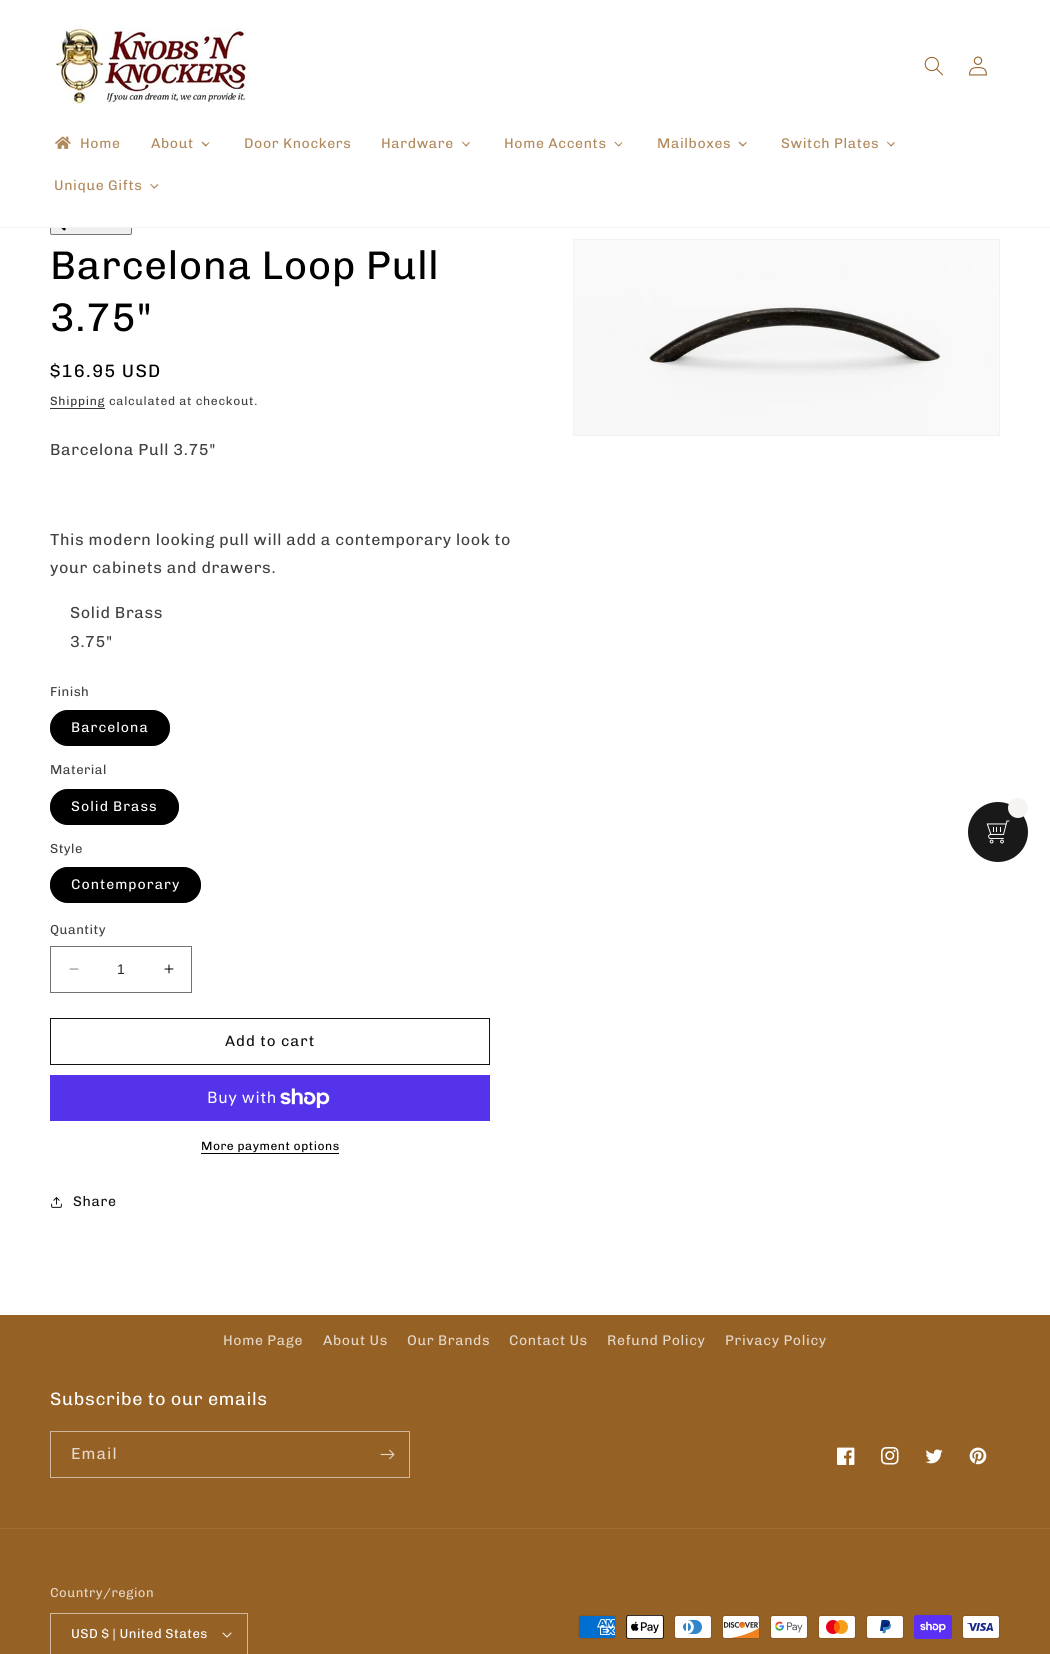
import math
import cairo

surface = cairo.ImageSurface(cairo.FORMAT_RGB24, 1050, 1654)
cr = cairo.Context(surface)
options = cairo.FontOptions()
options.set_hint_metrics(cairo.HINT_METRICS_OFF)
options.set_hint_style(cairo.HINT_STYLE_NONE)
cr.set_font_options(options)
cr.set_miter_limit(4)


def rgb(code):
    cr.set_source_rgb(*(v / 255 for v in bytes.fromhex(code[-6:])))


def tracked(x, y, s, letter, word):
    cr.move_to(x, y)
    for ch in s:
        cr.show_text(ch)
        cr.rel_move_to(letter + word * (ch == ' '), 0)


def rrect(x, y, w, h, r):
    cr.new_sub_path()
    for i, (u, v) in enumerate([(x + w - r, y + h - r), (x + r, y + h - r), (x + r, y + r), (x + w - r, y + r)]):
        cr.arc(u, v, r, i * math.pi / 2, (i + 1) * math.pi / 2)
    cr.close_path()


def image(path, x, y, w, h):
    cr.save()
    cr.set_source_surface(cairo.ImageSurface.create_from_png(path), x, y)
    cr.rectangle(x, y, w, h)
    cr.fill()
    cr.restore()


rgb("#ffffff")
cr.paint()
rgb("#efefef")
rrect(50.5, 214.5, 81, 20, 1.5)
cr.fill_preserve()
rgb("#767676")
cr.set_line_width(1)
cr.stroke()
rgb("#ffffff")
cr.rectangle(50, 214, 82, 13)
cr.fill()
rgb("#f7f2ee")
cr.rectangle(0, 227, 1050, 1)
cr.fill()
image("img/1.png", 50, 28, 200, 77)
image("img/2.png", 924, 56, 19, 20)
image("img/3.png", 969, 56, 18, 20)
image("img/4.png", 55, 136, 16, 13)
rgb("#b0895c")
cr.new_path()
cr.move_to(209, 142)
cr.line_to(209.5, 142.5)
cr.line_to(206, 146.5)
cr.line_to(205, 145.5)
cr.close_path()
cr.fill()
cr.set_source_rgba(0.584, 0.38, 0.145, 0.75)
cr.new_path()
cr.move_to(202.5, 141.5)
cr.line_to(206.5, 145.5)
cr.line_to(205.5, 146.5)
cr.line_to(201.5, 142.5)
cr.close_path()
cr.fill()
rgb("#b0895c")
cr.new_path()
cr.move_to(469, 142)
cr.line_to(470, 142.5)
cr.line_to(466.5, 146.5)
cr.line_to(465.5, 145.5)
cr.close_path()
cr.fill()
cr.set_source_rgba(0.584, 0.38, 0.145, 0.75)
cr.new_path()
cr.move_to(462.5, 141.5)
cr.line_to(466.5, 145.5)
cr.line_to(466, 146.5)
cr.line_to(462, 142.5)
cr.close_path()
cr.fill()
rgb("#b0895c")
cr.new_path()
cr.move_to(622, 142)
cr.line_to(622.5, 142.5)
cr.line_to(619, 146.5)
cr.line_to(618, 145.5)
cr.close_path()
cr.fill()
cr.set_source_rgba(0.584, 0.38, 0.145, 0.75)
cr.new_path()
cr.move_to(615, 141.5)
cr.line_to(619, 145.5)
cr.line_to(618.5, 146.5)
cr.line_to(614.5, 142.5)
cr.close_path()
cr.fill()
rgb("#b0895c")
cr.new_path()
cr.move_to(746, 142)
cr.line_to(747, 142.5)
cr.line_to(743, 146.5)
cr.line_to(742, 145.5)
cr.close_path()
cr.fill()
cr.set_source_rgba(0.584, 0.38, 0.145, 0.75)
cr.new_path()
cr.move_to(739.5, 141.5)
cr.line_to(743.5, 145.5)
cr.line_to(742.5, 146.5)
cr.line_to(738.5, 142.5)
cr.close_path()
cr.fill()
rgb("#b0895c")
cr.new_path()
cr.move_to(894, 142)
cr.line_to(895, 142.5)
cr.line_to(891.5, 146.5)
cr.line_to(890.5, 145.5)
cr.close_path()
cr.fill()
cr.set_source_rgba(0.584, 0.38, 0.145, 0.75)
cr.new_path()
cr.move_to(887.5, 141.5)
cr.line_to(891.5, 145.5)
cr.line_to(891, 146.5)
cr.line_to(887, 142.5)
cr.close_path()
cr.fill()
rgb("#b0895c")
cr.new_path()
cr.move_to(157.5, 184)
cr.line_to(158.5, 185)
cr.line_to(154.5, 188.5)
cr.line_to(153.5, 188)
cr.close_path()
cr.fill()
cr.set_source_rgba(0.584, 0.38, 0.145, 0.75)
cr.new_path()
cr.move_to(151, 184)
cr.line_to(155, 188)
cr.line_to(154, 188.5)
cr.line_to(150, 184.5)
cr.close_path()
cr.fill()
image("img/5.png", 61, 228, 5, 3)
rgb("#363636")
cr.rectangle(50, 408, 55, 1)
cr.fill()
rgb("#000000")
rrect(50, 710, 120, 36, 18)
cr.fill()
rrect(50.5, 710.5, 119, 35, 17.5)
cr.set_source_rgba(0, 0, 0, 0.55)
cr.stroke()
rgb("#000000")
rrect(50, 789, 129, 36, 18)
cr.fill()
rrect(50.5, 789.5, 128, 35, 17.5)
cr.set_source_rgba(0, 0, 0, 0.55)
cr.stroke()
rgb("#000000")
rrect(50, 867, 151, 36, 18)
cr.fill()
rrect(50.5, 867.5, 150, 35, 17.5)
cr.set_source_rgba(0, 0, 0, 0.55)
cr.stroke()
image("img/6.png", 69, 968, 10, 2)
image("img/7.png", 164, 964, 10, 10)
cr.rectangle(50.5, 946.5, 141, 46)
rgb("#737373")
cr.stroke()
cr.rectangle(50.5, 1018.5, 439, 46)
rgb("#121212")
cr.stroke()
rgb("#5433eb")
cr.rectangle(50, 1075, 440, 46)
cr.fill()
image("img/8.png", 280, 1088, 50, 20)
rgb("#000000")
cr.rectangle(201, 1153, 138, 1)
cr.fill()
image("img/9.png", 51, 1197, 11, 11)
cr.rectangle(573.5, 239.5, 426, 196)
rgb("#f2f2f2")
cr.stroke()
image("img/10.png", 574, 240, 425, 195)
rgb("#191919")
cr.arc(998, 832, 30, 0, 2 * math.pi)
cr.fill()
rgb("#f7f3f3")
cr.arc(1018, 808, 10, 0, 2 * math.pi)
cr.fill()
image("img/11.png", 986, 820, 24, 24)
rgb("#956125")
cr.rectangle(0, 1315, 1050, 339)
cr.fill()
cr.rectangle(50.5, 1431.5, 359, 46)
rgb("#cfb89d")
cr.stroke()
image("img/12.png", 380, 1449, 15, 11)
image("img/13.png", 837, 1447, 18, 18)
image("img/14.png", 881, 1447, 18, 18)
image("img/15.png", 925, 1449, 18, 15)
image("img/16.png", 969, 1447, 18, 18)
rgb("#9d6e36")
cr.rectangle(0, 1528, 1050, 1)
cr.fill()
image("img/17.png", 222, 1632, 10, 6)
cr.rectangle(50.5, 1613.5, 197, 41)
rgb("#cfb89d")
cr.stroke()
image("img/18.png", 578, 1615, 38, 24)
image("img/19.png", 626, 1615, 38, 24)
image("img/20.png", 674, 1615, 38, 24)
image("img/21.png", 722, 1615, 38, 24)
image("img/22.png", 770, 1615, 38, 24)
image("img/23.png", 818, 1615, 38, 24)
image("img/24.png", 866, 1615, 38, 24)
image("img/25.png", 914, 1615, 38, 24)
image("img/26.png", 962, 1615, 38, 24)
cr.select_font_face("Chivo")
cr.set_font_size(14)
rgb("#b0895c")
for x, y, s in [
    (80, 148, "Home"),
    (151, 148, "About"),
    (244, 148, "Door Knockers"),
    (381, 148, "Hardware"),
    (504, 148, "Home Accents"),
    (657, 148, "Mailboxes"),
    (781, 148, "Switch Plates"),
    (54, 190, "Unique Gifts"),
]:
    tracked(x, y, s, 0.6, 0)
cr.set_font_size(40)
rgb("#000000")
tracked(50, 279, "Barcelona Loop Pull", 0.6, 0)
tracked(50, 331, "3.75\"", 0.6, 0)
cr.set_font_size(18)
tracked(50, 377, "$16.95 USD", 1.25, 0)
cr.set_font_size(12)
rgb("#363636")
tracked(50, 405, "Shipping", 0.7, 0)
rgb("#404040")
tracked(109, 405, "calculated at checkout.", 0.7, 0)
cr.set_font_size(16)
for x, y, s in [
    (50, 455, "Barcelona Pull 3.75\""),
    (50, 545, "This modern looking pull will add a contemporary look to"),
    (50, 573, "your cabinets and drawers."),
    (70, 618, "Solid Brass"),
    (70, 647, "3.75\""),
]:
    tracked(x, y, s, 0.6, 0)
cr.set_font_size(13)
tracked(50, 696, "Finish", 0.4, 0)
cr.set_font_size(14)
rgb("#ffffff")
tracked(71, 732, "Barcelona", 1, 0)
cr.set_font_size(13)
rgb("#404040")
tracked(50, 774, "Material", 0.4, 0)
cr.set_font_size(14)
rgb("#ffffff")
tracked(71, 811, "Solid Brass", 1, 0)
cr.set_font_size(13)
rgb("#404040")
tracked(50, 853, "Style", 0.4, 0)
cr.set_font_size(14)
rgb("#ffffff")
tracked(71, 889, "Contemporary", 1, 0)
cr.set_font_size(13)
rgb("#404040")
tracked(50, 934, "Quantity", 0.4, 0)
cr.select_font_face("Liberation Sans")
cr.set_font_size(14)
rgb("#262626")
cr.move_to(117, 974)
cr.show_text("1")
cr.select_font_face("Chivo")
cr.set_font_size(15)
rgb("#121212")
tracked(225, 1046, "Add to cart", 1, 0)
cr.select_font_face("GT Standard")
cr.set_font_size(16)
rgb("#ffffff")
tracked(207, 1103, "Buy with", 0.6, 0)
cr.select_font_face("Chivo")
cr.set_font_size(12)
rgb("#000000")
tracked(201, 1150, "More payment options", 0.5, 0)
cr.set_font_size(14)
rgb("#121212")
tracked(73, 1206, "Share", 0.6, 0)
rgb("#e5d8c9")
for x, y, s in [
    (223, 1345, "Home Page"),
    (323, 1345, "About Us"),
    (407, 1345, "Our Brands"),
    (509, 1345, "Contact Us"),
    (607, 1345, "Refund Policy"),
    (725, 1345, "Privacy Policy"),
]:
    tracked(x, y, s, 0.6, 0)
cr.set_font_size(18)
rgb("#ffffff")
tracked(50, 1405, "Subscribe to our emails", 0.6, 0)
cr.set_font_size(16)
rgb("#e5d8c9")
tracked(71, 1459, "Email", 1, 0)
cr.set_font_size(13)
tracked(50, 1597, "Country/region", 0.4, 0)
rgb("#ffffff")
tracked(71, 1638, "USD $ | United States", 0.4, 0)
surface.write_to_png("page.png")
